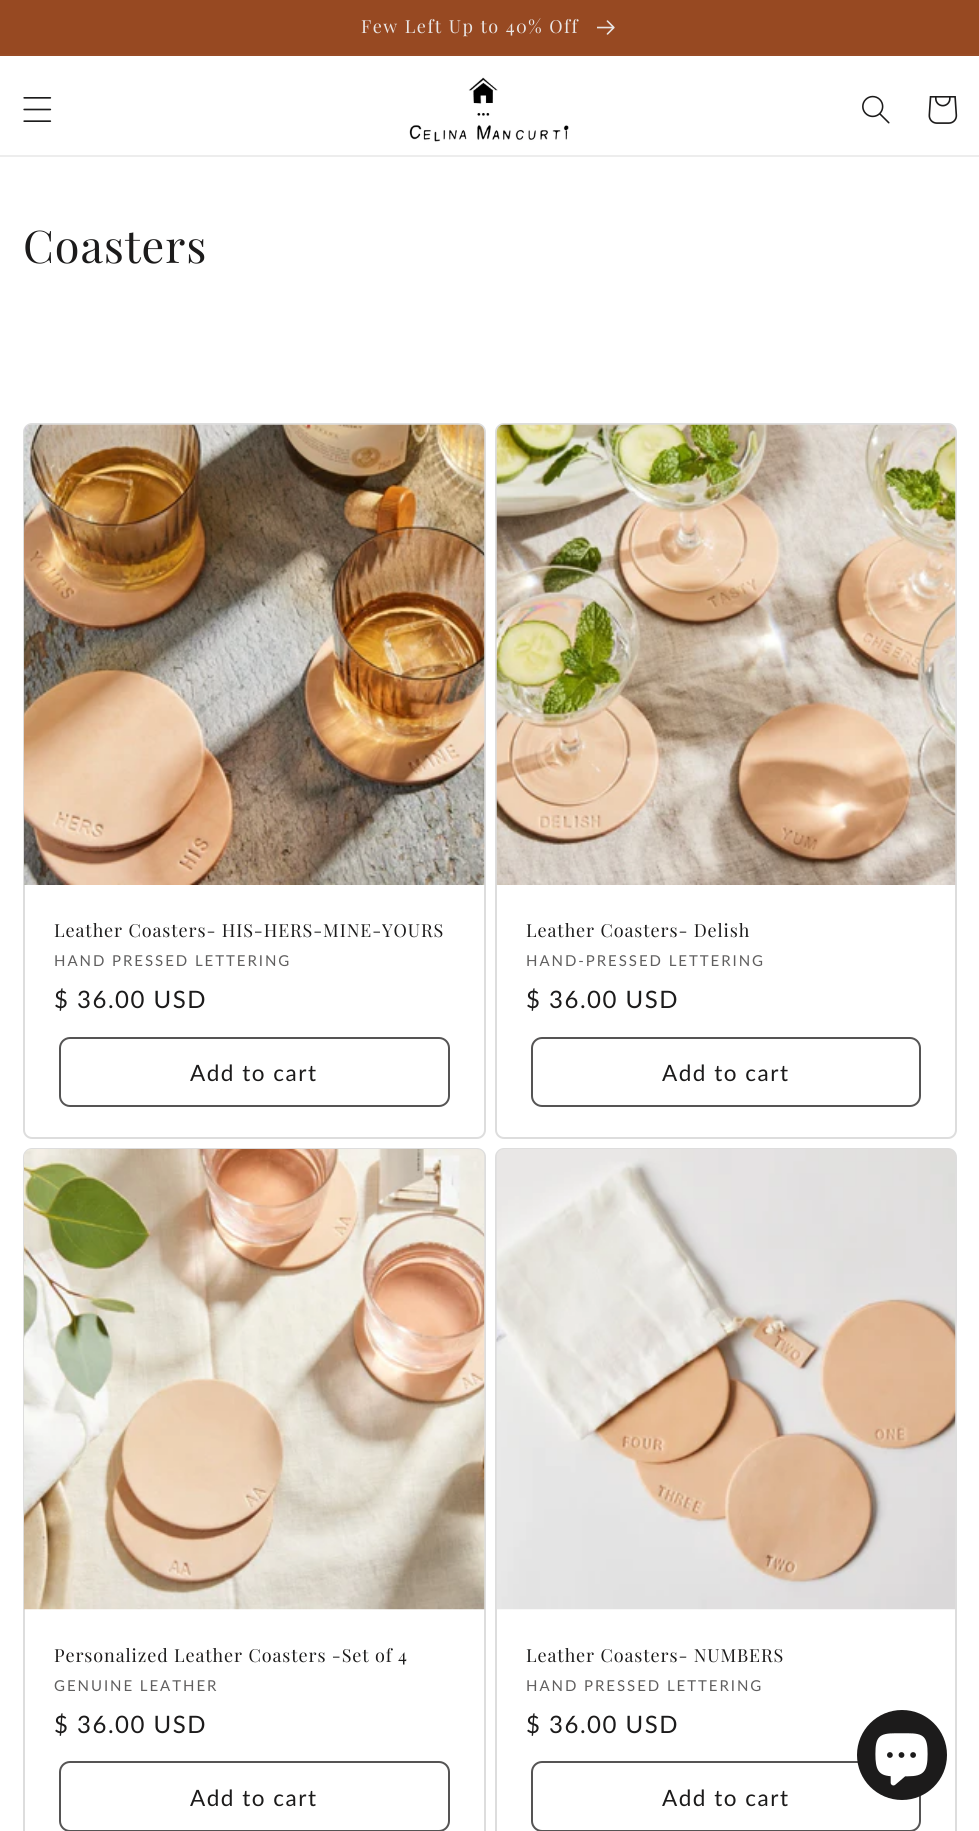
import math
import cairo

surface = cairo.ImageSurface(cairo.FORMAT_RGB24, 979, 1831)
cr = cairo.Context(surface)
options = cairo.FontOptions()
options.set_hint_metrics(cairo.HINT_METRICS_OFF)
options.set_hint_style(cairo.HINT_STYLE_NONE)
cr.set_font_options(options)
cr.set_miter_limit(4)


def rgb(code):
    cr.set_source_rgb(*(v / 255 for v in bytes.fromhex(code[-6:])))


def tracked(x, y, s, letter, word):
    cr.move_to(x, y)
    for ch in s:
        cr.show_text(ch)
        cr.rel_move_to(letter + word * (ch == ' '), 0)


def rrect(x, y, w, h, r):
    cr.new_sub_path()
    for i, (u, v) in enumerate([(x + w - r, y + h - r), (x + r, y + h - r), (x + r, y + r), (x + w - r, y + r)]):
        cr.arc(u, v, r, i * math.pi / 2, (i + 1) * math.pi / 2)
    cr.close_path()


def image(path, x, y, w, h):
    cr.save()
    cr.set_source_surface(cairo.ImageSurface.create_from_png(path), x, y)
    cr.rectangle(x, y, w, h)
    cr.fill()
    cr.restore()


rgb("#ffffff")
cr.paint()
rgb("#994c26")
cr.rectangle(0, 54, 979, 2)
cr.fill()
rgb("#974922")
cr.rectangle(0, 0, 979, 54)
cr.fill()
image("img/1.png", 597, 20, 18, 15)
rgb("#ededed")
cr.rectangle(0, 155, 979, 2)
cr.fill()
image("img/2.png", 23, 97, 29, 25)
image("img/3.png", 409, 77, 160, 65)
image("img/4.png", 862, 95, 28, 29)
image("img/5.png", 928, 96, 30, 28)
rrect(24, 424, 461, 714, 8)
rgb("#dddddd")
cr.stroke()
image("img/6.png", 24, 424, 461, 461)
rrect(60, 1038, 389, 68, 10)
rgb("#555454")
cr.stroke()
rrect(496, 424, 460, 714, 8)
rgb("#dddddd")
cr.stroke()
image("img/7.png", 496, 424, 460, 461)
rrect(532, 1038, 388, 68, 10)
rgb("#555454")
cr.stroke()
rrect(24, 1149, 461, 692, 8)
rgb("#dddddd")
cr.stroke()
image("img/8.png", 24, 1149, 461, 461)
rrect(60, 1762, 389, 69, 10)
rgb("#555454")
cr.stroke()
rrect(496, 1149, 460, 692, 8)
rgb("#dddddd")
cr.stroke()
image("img/9.png", 496, 1149, 460, 461)
rrect(532, 1762, 388, 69, 10)
rgb("#555454")
cr.stroke()
rgb("#1c1b1b")
cr.arc(902, 1755, 45, 0, 2 * math.pi)
cr.fill()
image("img/10.png", 875, 1733, 53, 53)
cr.select_font_face("Playfair Display")
cr.set_font_size(18)
rgb("#e9e6e6")
tracked(361, 33, "Few Left Up to 40% Off", 1.5, 0)
cr.set_font_size(45)
rgb("#1c1b1b")
tracked(23, 263, "Coasters", 0.9, 0)
cr.set_font_size(18)
tracked(54, 937, "Leather Coasters- HIS-HERS-MINE-YOURS", 0.9, 0)
cr.select_font_face("Lato")
cr.set_font_size(15)
rgb("#605f5f")
tracked(54, 966, "HAND PRESSED LETTERING", 1.95, 0)
cr.set_font_size(24)
rgb("#1c1b1b")
tracked(54, 1008, "$ 36.00 USD", 1.5, 0)
cr.set_font_size(22.5)
tracked(190, 1081, "Add to cart", 1.5, 0)
cr.select_font_face("Playfair Display")
cr.set_font_size(18)
tracked(526, 937, "Leather Coasters- Delish", 0.9, 0)
cr.select_font_face("Lato")
cr.set_font_size(15)
rgb("#605f5f")
tracked(526, 966, "HAND-PRESSED LETTERING", 1.95, 0)
cr.set_font_size(24)
rgb("#1c1b1b")
tracked(526, 1008, "$ 36.00 USD", 1.5, 0)
cr.set_font_size(22.5)
tracked(662, 1081, "Add to cart", 1.5, 0)
cr.select_font_face("Playfair Display")
cr.set_font_size(18)
tracked(54, 1662, "Personalized Leather Coasters -Set of 4", 0.9, 0)
cr.select_font_face("Lato")
cr.set_font_size(15)
rgb("#605f5f")
tracked(54, 1691, "GENUINE LEATHER", 1.95, 0)
cr.set_font_size(24)
rgb("#1c1b1b")
tracked(54, 1733, "$ 36.00 USD", 1.5, 0)
cr.set_font_size(22.5)
tracked(190, 1806, "Add to cart", 1.5, 0)
cr.select_font_face("Playfair Display")
cr.set_font_size(18)
tracked(526, 1662, "Leather Coasters- NUMBERS", 0.9, 0)
cr.select_font_face("Lato")
cr.set_font_size(15)
rgb("#605f5f")
tracked(526, 1691, "HAND PRESSED LETTERING", 1.95, 0)
cr.set_font_size(24)
rgb("#1c1b1b")
tracked(526, 1733, "$ 36.00 USD", 1.5, 0)
cr.set_font_size(22.5)
tracked(662, 1806, "Add to cart", 1.5, 0)
surface.write_to_png("page.png")
